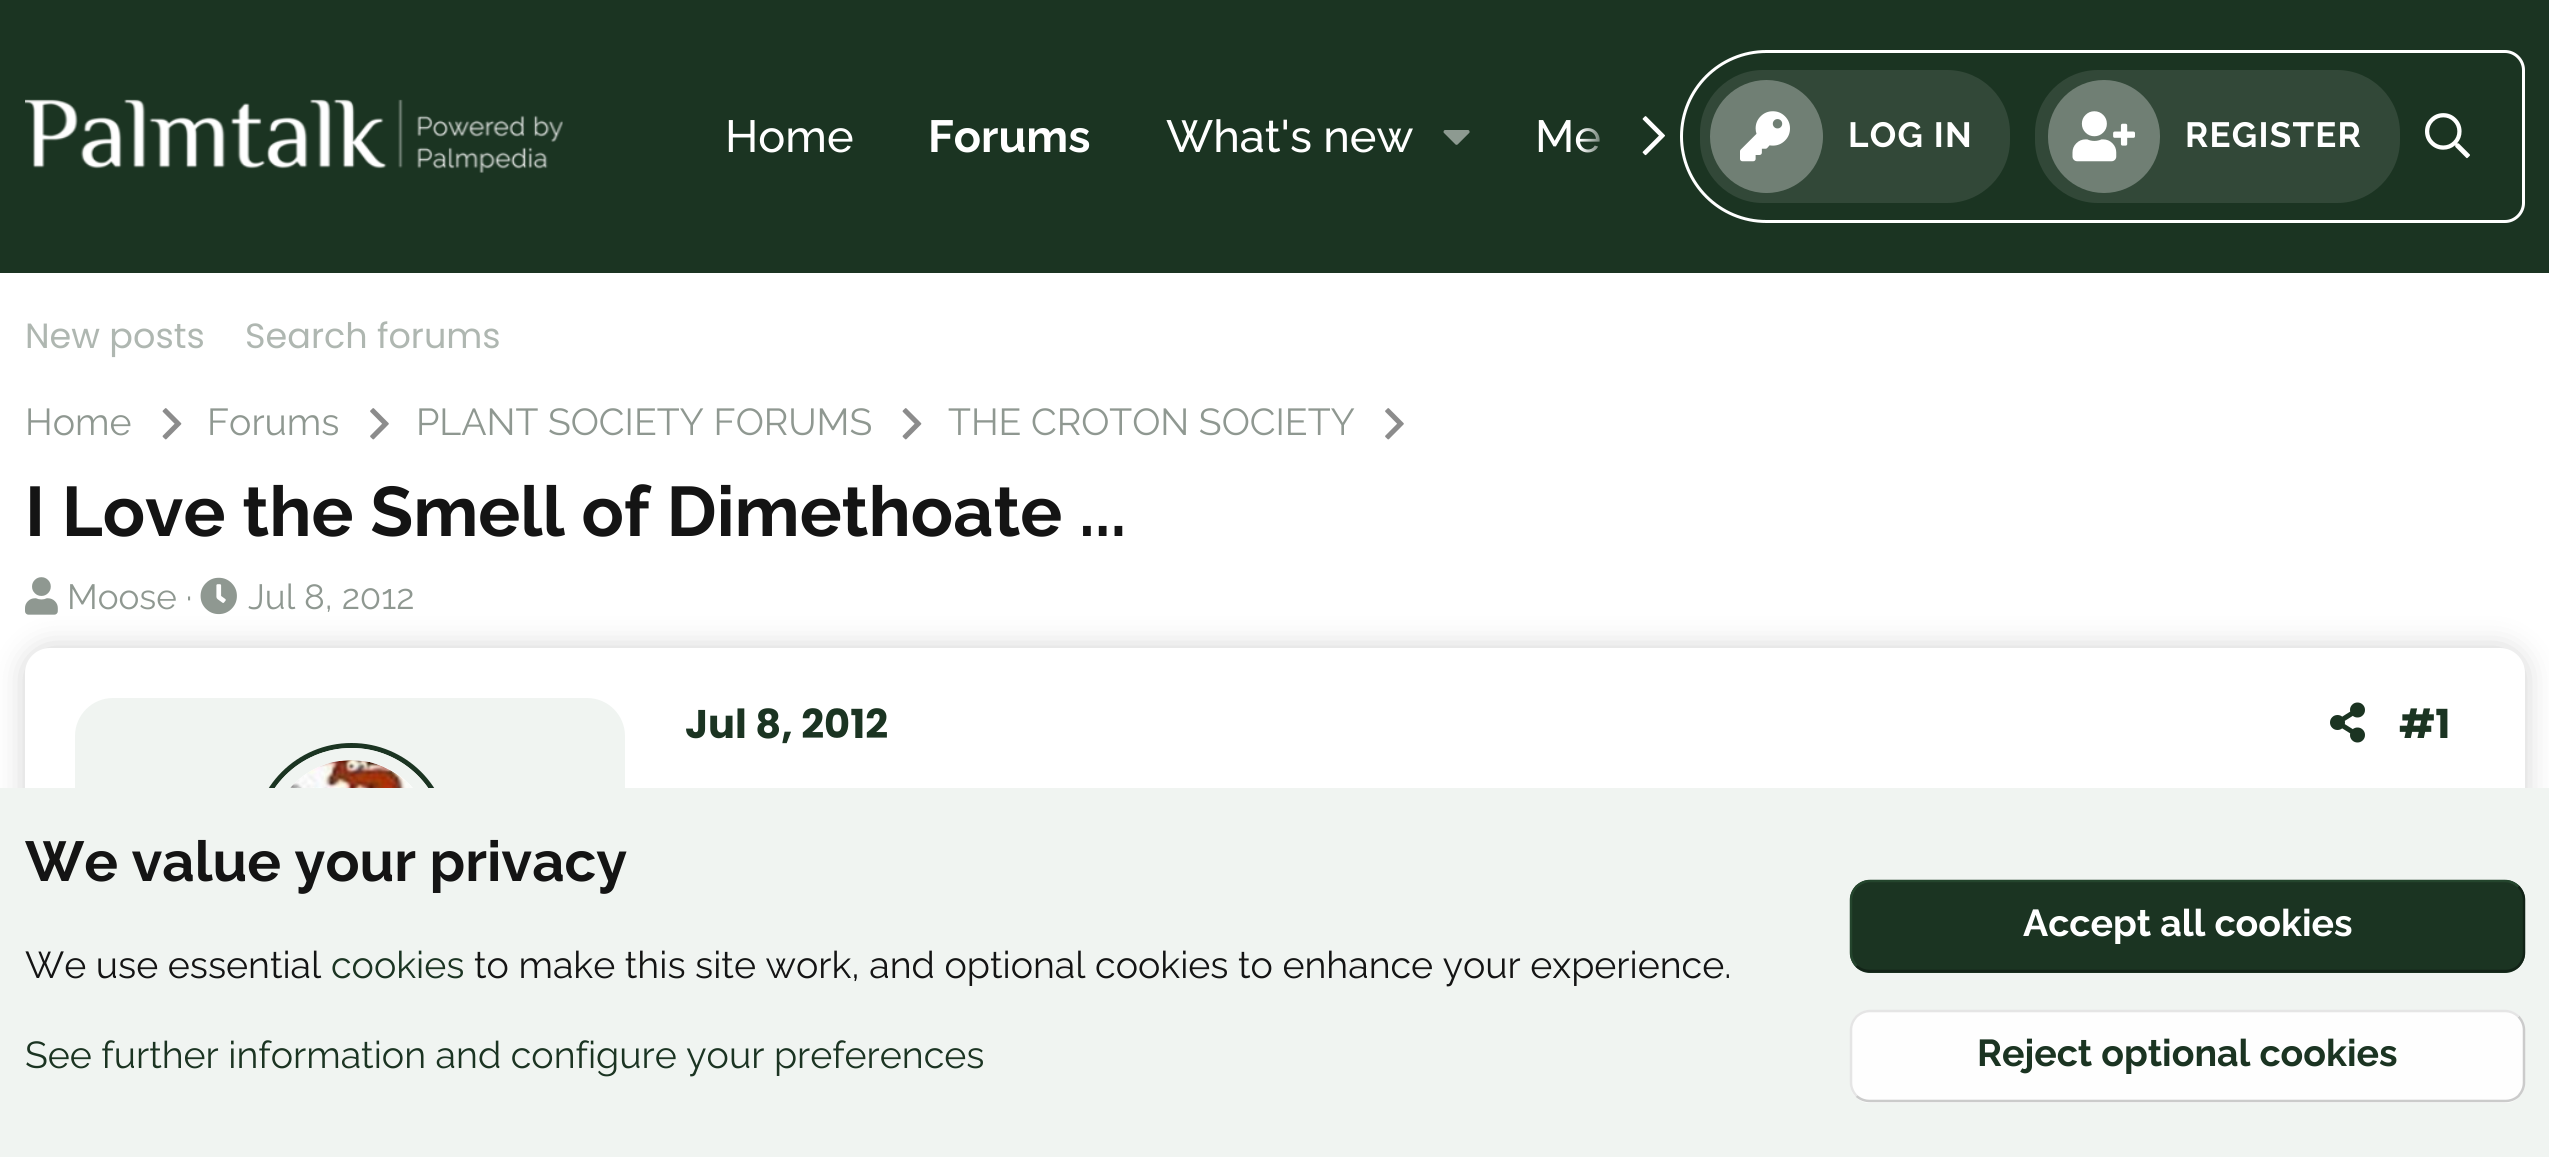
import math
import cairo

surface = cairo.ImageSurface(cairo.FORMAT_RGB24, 2549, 1157)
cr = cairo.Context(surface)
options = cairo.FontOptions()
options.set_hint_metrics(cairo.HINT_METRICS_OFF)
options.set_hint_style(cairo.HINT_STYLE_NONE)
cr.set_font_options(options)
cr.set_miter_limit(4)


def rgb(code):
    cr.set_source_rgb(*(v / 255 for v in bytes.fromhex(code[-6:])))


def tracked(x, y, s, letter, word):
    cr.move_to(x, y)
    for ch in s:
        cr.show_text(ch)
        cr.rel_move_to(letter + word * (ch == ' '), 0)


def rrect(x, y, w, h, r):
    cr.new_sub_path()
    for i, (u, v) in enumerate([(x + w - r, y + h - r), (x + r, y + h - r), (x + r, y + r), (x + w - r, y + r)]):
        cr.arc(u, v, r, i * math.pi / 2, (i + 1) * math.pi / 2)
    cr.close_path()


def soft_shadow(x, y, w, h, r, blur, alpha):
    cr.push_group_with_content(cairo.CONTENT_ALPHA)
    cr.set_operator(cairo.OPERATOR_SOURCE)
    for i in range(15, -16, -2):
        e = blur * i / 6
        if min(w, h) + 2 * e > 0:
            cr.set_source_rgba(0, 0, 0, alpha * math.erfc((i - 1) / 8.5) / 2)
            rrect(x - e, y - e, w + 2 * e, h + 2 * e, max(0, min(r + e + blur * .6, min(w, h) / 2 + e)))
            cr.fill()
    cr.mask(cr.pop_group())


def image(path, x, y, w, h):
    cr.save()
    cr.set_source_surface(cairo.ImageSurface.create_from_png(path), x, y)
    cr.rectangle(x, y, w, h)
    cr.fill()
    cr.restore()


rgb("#ffffff")
cr.paint()
rgb("#1b3422")
cr.rectangle(0, 0, 2549, 273)
cr.fill()
image("img/1.png", 25, 99, 538, 74)
image("img/2.png", 1443, 130, 27, 15)
image("img/3.png", 1642, 116, 23, 40)
cr.new_path()
cr.move_to(1766.5, 51.5)
cr.line_to(2505, 51.5)
cr.curve_to(2515, 51.5, 2523.5, 60, 2523.5, 70)
cr.line_to(2523.5, 203)
cr.curve_to(2523.5, 213, 2515, 221.5, 2505, 221.5)
cr.line_to(1766.5, 221.5)
cr.curve_to(1719.5, 221.5, 1681.5, 183.5, 1681.5, 136.5)
cr.curve_to(1681.5, 89.5, 1719.5, 51.5, 1766.5, 51.5)
cr.close_path()
rgb("#ffffff")
cr.set_line_width(3)
cr.stroke()
rgb("#324838")
rrect(1700, 70, 310, 133, 63)
cr.fill()
rgb("#707f74")
cr.arc(1766.5, 136.5, 56.5, 0, 2 * math.pi)
cr.fill()
image("img/4.png", 1740, 111, 50, 51)
rgb("#324838")
rrect(2035, 70, 365, 133, 63)
cr.fill()
rgb("#707f74")
rrect(2048, 80, 112, 113, 56)
cr.fill()
image("img/5.png", 2072, 111, 63, 51)
image("img/6.png", 2425, 113, 45, 46)
image("img/7.png", 162, 408, 20, 32)
image("img/8.png", 370, 408, 19, 32)
image("img/7.png", 902, 408, 20, 32)
image("img/8.png", 1385, 408, 19, 32)
rgb("#000000")
soft_shadow(25, 648, 2500, 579, 25, 15, 0.18)
image("img/9.png", 25, 577, 33, 38)
image("img/10.png", 200, 577, 37, 38)
rgb("#ffffff")
rrect(25, 648, 2500, 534, 25)
cr.fill()
rgb("#f0f4f1")
rrect(75, 698, 550, 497, 38)
cr.fill()
cr.arc(351.5, 841.5, 96, 0, 2 * math.pi)
rgb("#1b3422")
cr.set_line_width(5)
cr.stroke()
cr.arc(351.5, 841.5, 87, 0, 2 * math.pi)
rgb("#f0f4f1")
cr.set_line_width(13)
cr.stroke()
rgb("#fefefe")
cr.arc(351.5, 841.5, 81.5, 0, 2 * math.pi)
cr.fill()
image("img/11.png", 290, 760, 123, 28)
image("img/12.png", 2330, 702, 35, 41)
rgb("#f0f4f1")
cr.rectangle(0, 788, 2549, 369)
cr.fill()
rgb("#1b3422")
rrect(1850, 880, 675, 93, 20)
cr.fill()
cr.new_path()
cr.move_to(2518.5, 886.5)
cr.curve_to(2522, 890.5, 2524, 895, 2524, 900)
cr.line_to(2524, 952.5)
cr.curve_to(2524, 957.5, 2522, 962, 2518.5, 966)
cr.curve_to(2514.5, 969.5, 2510, 971, 2505, 971)
cr.line_to(1870, 971)
cr.curve_to(1865, 971, 1860.5, 969.5, 1856.5, 966)
rgb("#122317")
cr.set_line_width(2.5)
cr.stroke()
cr.new_path()
cr.move_to(1856.5, 966)
cr.curve_to(1853, 962, 1851, 957.5, 1851, 952.5)
cr.line_to(1851, 900)
cr.curve_to(1851, 895, 1853, 890.5, 1856.5, 886.5)
cr.curve_to(1860.5, 883, 1865, 881, 1870, 881)
cr.line_to(2505, 881)
cr.curve_to(2510, 881, 2514.5, 883, 2518.5, 886.5)
rgb("#24452d")
cr.stroke()
rgb("#fefefe")
rrect(1850, 1010, 675, 93, 20)
cr.fill()
cr.new_path()
cr.move_to(2518.5, 1016.5)
cr.curve_to(2522, 1020.5, 2524, 1025, 2524, 1030)
cr.line_to(2524, 1082.5)
cr.curve_to(2524, 1087.5, 2522, 1092, 2518.5, 1096)
cr.curve_to(2514.5, 1099.5, 2510, 1101, 2505, 1101)
cr.line_to(1870, 1101)
cr.curve_to(1865, 1101, 1860.5, 1099.5, 1856.5, 1096)
rgb("#cbcbcb")
cr.stroke()
cr.new_path()
cr.move_to(1856.5, 1096)
cr.curve_to(1853, 1092, 1851, 1087.5, 1851, 1082.5)
cr.line_to(1851, 1030)
cr.curve_to(1851, 1025, 1853, 1020.5, 1856.5, 1016.5)
cr.curve_to(1860.5, 1013, 1865, 1011, 1870, 1011)
cr.line_to(2505, 1011)
cr.curve_to(2510, 1011, 2514.5, 1013, 2518.5, 1016.5)
rgb("#e5e5e5")
cr.stroke()
cr.select_font_face("Raleway Medium")
cr.set_font_size(45)
rgb("#ffffff")
cr.move_to(725, 152)
cr.show_text("Home")
cr.select_font_face("Raleway", cairo.FONT_SLANT_NORMAL, cairo.FONT_WEIGHT_BOLD)
cr.move_to(928, 152)
cr.show_text("Forums")
cr.select_font_face("Raleway Medium")
cr.move_to(1166, 152)
cr.show_text("What's new")
cr.move_to(1535, 152)
cr.show_text("Me")
gradient = cairo.LinearGradient(1580, 136, 1680, 136)
gradient.add_color_stop_rgba(0, 0.106, 0.204, 0.133, 0)
gradient.add_color_stop_rgba(0.33, 0.106, 0.204, 0.133, 1)
cr.set_source(gradient)
cr.rectangle(1581, 128, 19, 25)
cr.fill()
cr.select_font_face("Raleway", cairo.FONT_SLANT_NORMAL, cairo.FONT_WEIGHT_BOLD)
cr.set_font_size(35)
rgb("#ffffff")
tracked(1848, 147, "LOG IN", 1.25, 0)
tracked(2185, 147, "REGISTER", 1.25, 0)
cr.select_font_face("Poppins")
rgb("#afb7b1")
cr.move_to(25, 348)
cr.show_text("New posts")
cr.move_to(245, 348)
cr.show_text("Search forums")
cr.select_font_face("Raleway")
cr.set_font_size(37.5)
rgb("#8f9891")
for x, y, s in [
    (25, 435, "Home"),
    (207, 435, "Forums"),
    (416, 435, "PLANT SOCIETY FORUMS"),
    (948, 435, "THE CROTON SOCIETY"),
]:
    cr.move_to(x, y)
    cr.show_text(s)
cr.select_font_face("Raleway", cairo.FONT_SLANT_NORMAL, cairo.FONT_WEIGHT_BOLD)
cr.set_font_size(70)
rgb("#141414")
cr.move_to(25, 536)
cr.show_text("I Love the Smell of Dimethoate ...")
cr.select_font_face("Raleway")
cr.set_font_size(35)
rgb("#8f9891")
cr.move_to(67, 609)
cr.show_text("Moose ·")
cr.move_to(248, 609)
cr.show_text("Jul 8, 2012")
cr.select_font_face("Poppins", cairo.FONT_SLANT_NORMAL, cairo.FONT_WEIGHT_BOLD)
cr.set_font_size(40)
rgb("#1b3422")
cr.move_to(685, 738)
cr.show_text("Jul 8, 2012")
cr.move_to(2399, 738)
cr.show_text("#1")
cr.select_font_face("Raleway", cairo.FONT_SLANT_NORMAL, cairo.FONT_WEIGHT_BOLD)
cr.set_font_size(56.25)
rgb("#141414")
cr.move_to(25, 881)
cr.show_text("We value your privacy")
cr.select_font_face("Raleway")
cr.set_font_size(37.5)
cr.move_to(25, 978)
cr.show_text("We use essential")
rgb("#1b3422")
cr.move_to(331, 978)
cr.show_text("cookies")
rgb("#141414")
cr.move_to(474, 978)
cr.show_text("to make this site work, and optional cookies to enhance your experience.")
rgb("#1b3422")
cr.move_to(25, 1068)
cr.show_text("See further information and configure your preferences")
cr.select_font_face("Raleway", cairo.FONT_SLANT_NORMAL, cairo.FONT_WEIGHT_BOLD)
rgb("#ffffff")
cr.move_to(2023, 936)
cr.show_text("Accept all cookies")
rgb("#1b3422")
cr.move_to(1977, 1066)
cr.show_text("Reject optional cookies")
surface.write_to_png("page.png")
